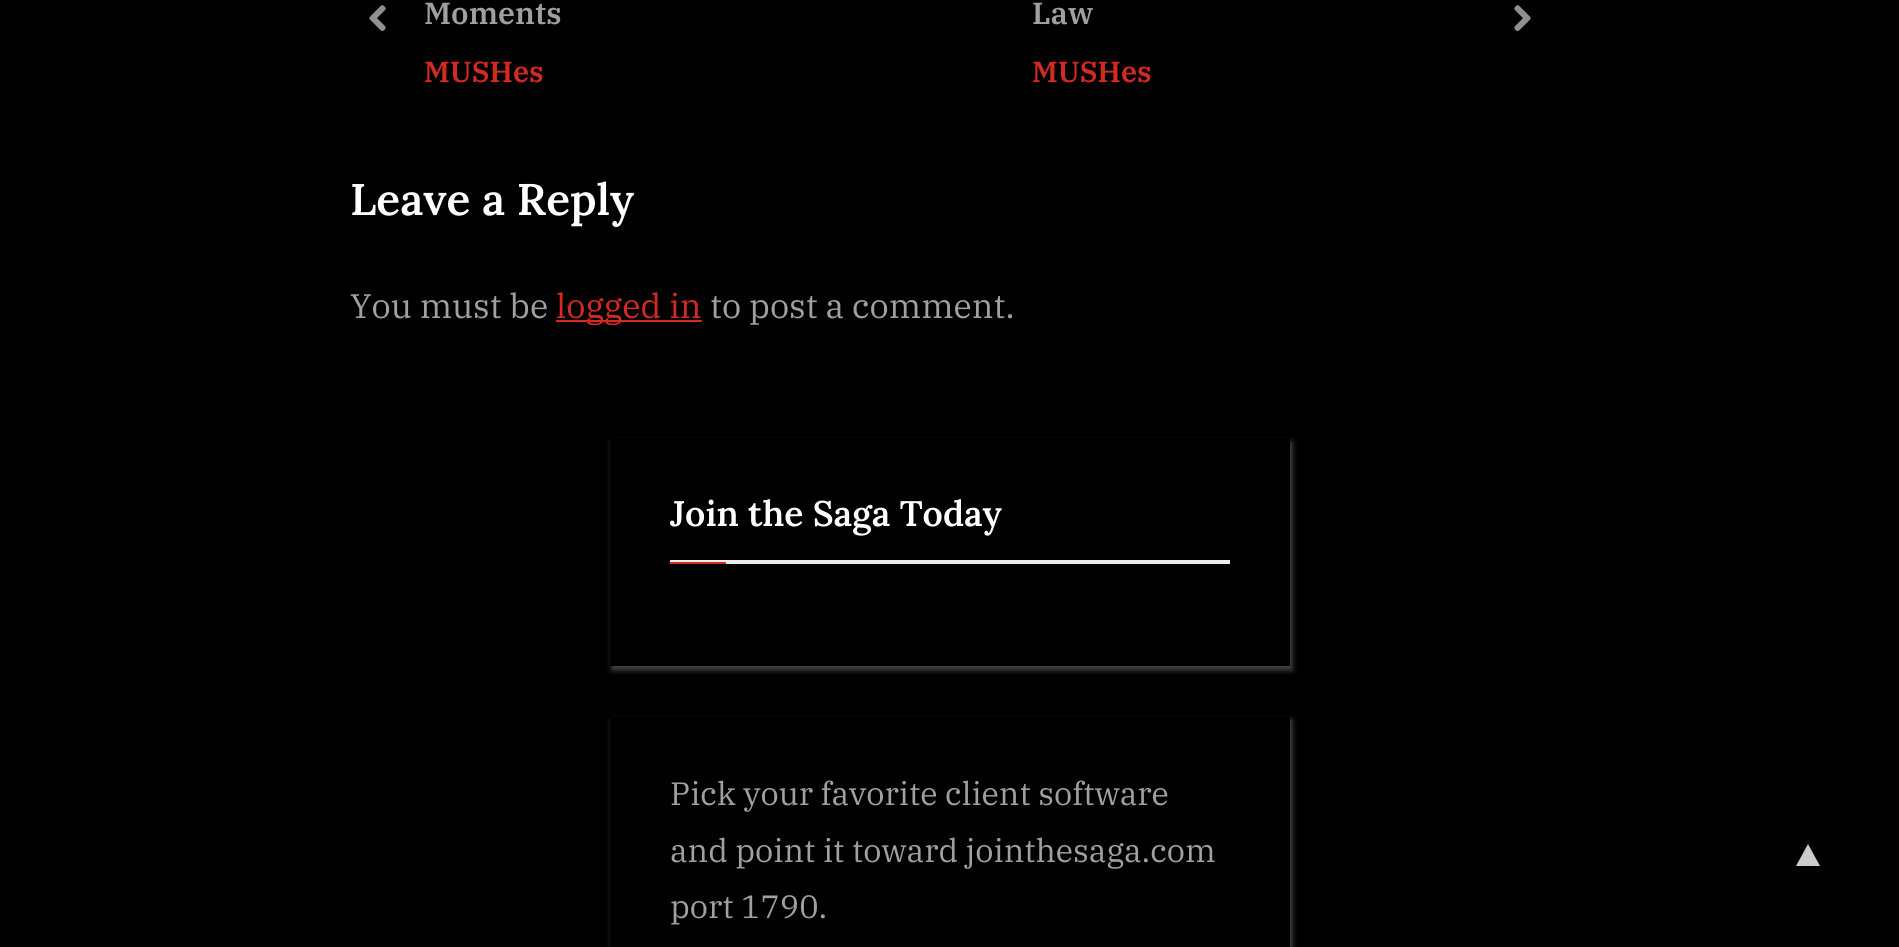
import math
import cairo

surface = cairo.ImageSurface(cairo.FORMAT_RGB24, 1899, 947)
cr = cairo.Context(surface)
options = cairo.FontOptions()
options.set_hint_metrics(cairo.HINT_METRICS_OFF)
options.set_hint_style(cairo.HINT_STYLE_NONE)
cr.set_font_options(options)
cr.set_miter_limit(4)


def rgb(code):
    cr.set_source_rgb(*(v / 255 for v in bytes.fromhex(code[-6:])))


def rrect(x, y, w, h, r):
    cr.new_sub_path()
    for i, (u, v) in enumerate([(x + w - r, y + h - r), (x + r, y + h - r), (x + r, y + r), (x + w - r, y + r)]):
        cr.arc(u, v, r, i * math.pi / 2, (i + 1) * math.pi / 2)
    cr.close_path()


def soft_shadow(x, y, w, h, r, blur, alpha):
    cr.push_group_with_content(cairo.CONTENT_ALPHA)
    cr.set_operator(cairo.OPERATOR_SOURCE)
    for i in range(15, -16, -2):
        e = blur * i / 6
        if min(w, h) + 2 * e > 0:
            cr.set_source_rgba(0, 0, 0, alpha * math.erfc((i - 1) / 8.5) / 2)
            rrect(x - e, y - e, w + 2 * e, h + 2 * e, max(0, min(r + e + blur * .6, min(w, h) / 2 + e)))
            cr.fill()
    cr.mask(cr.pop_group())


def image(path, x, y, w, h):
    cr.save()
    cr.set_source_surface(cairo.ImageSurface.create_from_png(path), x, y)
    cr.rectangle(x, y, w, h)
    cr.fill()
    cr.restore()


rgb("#000000")
cr.paint()
image("img/1.png", 369, 5, 17, 26)
image("img/2.png", 1514, 5, 17, 26)
rgb("#d72924")
cr.rectangle(556, 320, 146, 2)
cr.fill()
cr.save()
cr.set_fill_rule(cairo.FILL_RULE_EVEN_ODD)
cr.new_path()
cr.move_to(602, 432)
cr.line_to(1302, 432)
cr.line_to(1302, 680)
cr.line_to(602, 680)
cr.close_path()
cr.move_to(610, 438)
cr.line_to(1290, 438)
cr.line_to(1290, 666)
cr.line_to(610, 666)
cr.close_path()
cr.clip()
rgb("#ffffff")
soft_shadow(612, 442, 680, 228, 0, 3, 0.3)
cr.restore()
rgb("#eeeeee")
cr.rectangle(670, 560, 560, 4)
cr.fill()
rgb("#d72924")
cr.rectangle(670, 562, 56, 2)
cr.fill()
cr.save()
cr.set_fill_rule(cairo.FILL_RULE_EVEN_ODD)
cr.new_path()
cr.move_to(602, 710)
cr.line_to(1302, 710)
cr.line_to(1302, 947)
cr.line_to(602, 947)
cr.close_path()
cr.move_to(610, 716)
cr.line_to(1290, 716)
cr.line_to(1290, 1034)
cr.line_to(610, 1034)
cr.close_path()
cr.clip()
rgb("#ffffff")
soft_shadow(612, 720, 680, 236, 0, 3, 0.3)
cr.restore()
rgb("#cccccc")
cr.new_path()
cr.move_to(1820, 866)
cr.line_to(1796, 866)
cr.line_to(1808, 844)
cr.close_path()
cr.fill()
cr.select_font_face("IBM Plex Serif SemiBold")
cr.set_font_size(30.5)
rgb("#a0a0a0")
cr.move_to(424, 24)
cr.show_text("Moments")
cr.set_font_size(29)
rgb("#d72924")
cr.move_to(424, 82)
cr.show_text("MUSHes")
cr.set_font_size(30.5)
rgb("#a0a0a0")
cr.move_to(1032, 24)
cr.show_text("Law")
cr.set_font_size(29)
rgb("#d72924")
cr.move_to(1032, 82)
cr.show_text("MUSHes")
cr.select_font_face("Lora SemiBold")
cr.set_font_size(44.25)
rgb("#ffffff")
cr.move_to(350, 215)
cr.show_text("Leave a Reply")
cr.select_font_face("IBM Plex Serif")
cr.set_font_size(34)
rgb("#a0a0a0")
cr.move_to(350, 318)
cr.show_text("You must be")
rgb("#d72924")
cr.move_to(556, 318)
cr.show_text("logged in")
rgb("#a0a0a0")
cr.move_to(710, 318)
cr.show_text("to post a comment.")
cr.select_font_face("Lora SemiBold")
cr.set_font_size(35.5)
rgb("#ffffff")
cr.move_to(670, 526)
cr.show_text("Join the Saga Today")
cr.select_font_face("IBM Plex Serif")
cr.set_font_size(32.25)
rgb("#a0a0a0")
for x, y, s in [
    (670, 805, "Pick your favorite client software"),
    (670, 862, "and point it toward jointhesaga.com"),
    (670, 918, "port 1790."),
]:
    cr.move_to(x, y)
    cr.show_text(s)
surface.write_to_png("page.png")
